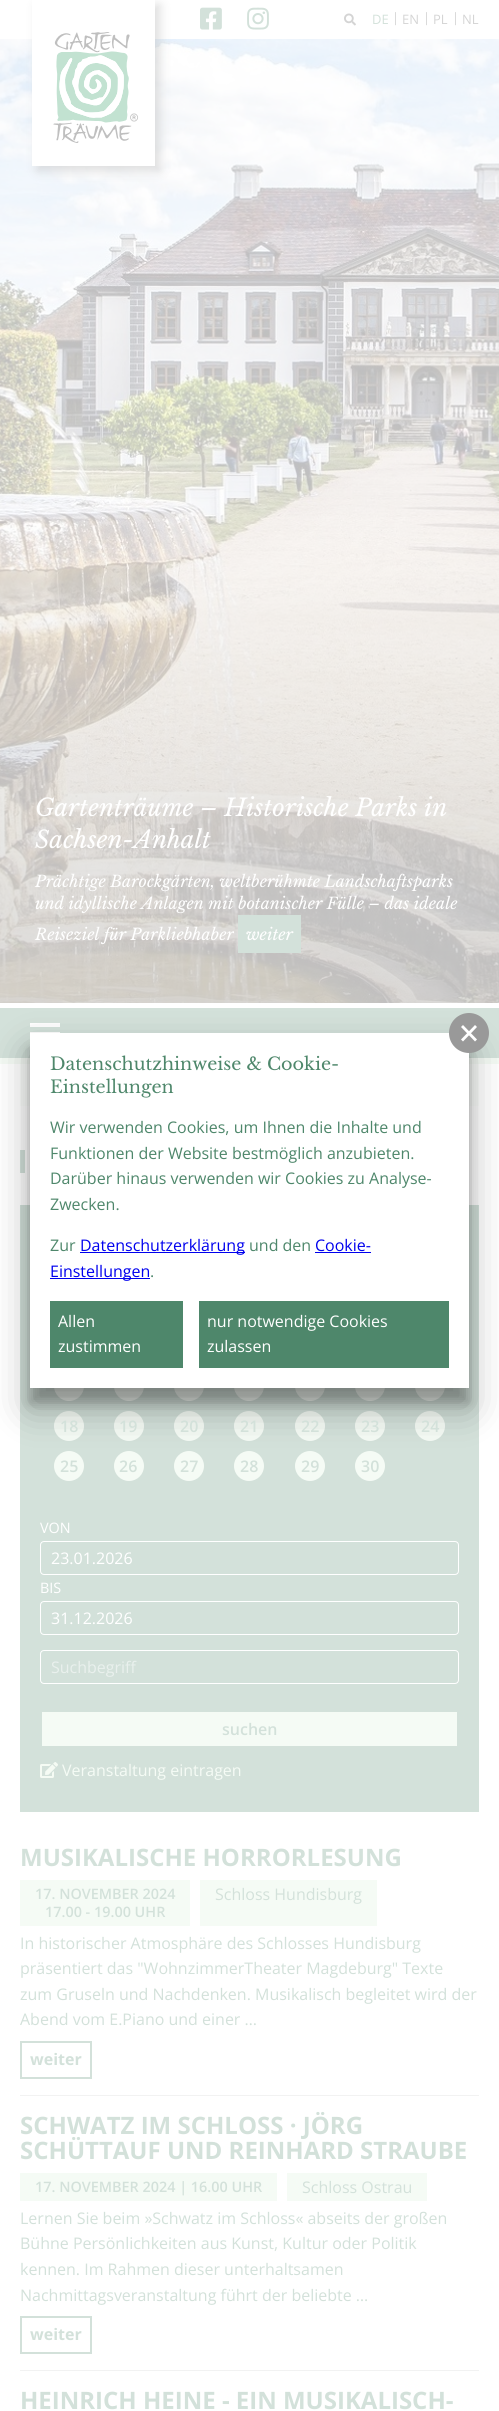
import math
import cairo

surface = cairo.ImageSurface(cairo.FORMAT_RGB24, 499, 2411)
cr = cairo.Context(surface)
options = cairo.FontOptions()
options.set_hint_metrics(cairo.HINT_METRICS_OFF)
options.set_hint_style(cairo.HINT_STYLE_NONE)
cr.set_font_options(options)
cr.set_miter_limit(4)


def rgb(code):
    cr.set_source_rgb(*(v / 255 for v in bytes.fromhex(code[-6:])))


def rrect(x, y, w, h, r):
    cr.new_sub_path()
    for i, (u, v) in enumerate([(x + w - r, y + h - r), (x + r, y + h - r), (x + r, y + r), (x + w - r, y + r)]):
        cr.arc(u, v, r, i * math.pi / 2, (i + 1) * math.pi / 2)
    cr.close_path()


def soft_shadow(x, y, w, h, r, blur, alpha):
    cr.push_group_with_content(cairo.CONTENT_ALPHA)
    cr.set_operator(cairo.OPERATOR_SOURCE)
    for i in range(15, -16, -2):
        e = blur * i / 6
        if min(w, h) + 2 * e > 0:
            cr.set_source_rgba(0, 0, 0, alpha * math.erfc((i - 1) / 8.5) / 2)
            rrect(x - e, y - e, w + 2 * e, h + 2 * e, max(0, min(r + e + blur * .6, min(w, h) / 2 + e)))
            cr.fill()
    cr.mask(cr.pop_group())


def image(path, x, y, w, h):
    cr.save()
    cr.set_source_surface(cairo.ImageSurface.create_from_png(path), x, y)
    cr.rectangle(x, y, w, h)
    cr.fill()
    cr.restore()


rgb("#ffffff")
cr.paint()
image("img/5.png", 0, 39, 499, 964)
rgb("#bfbfbf")
soft_shadow(37, 5, 123, 166, 0, 5, 0.5)
rgb("#ffffff")
cr.rectangle(32, 0, 123, 166)
cr.fill()
image("img/1.png", 53, 32, 86, 111)
image("img/2.png", 200, 7, 22, 23)
image("img/3.png", 247, 7, 22, 23)
image("img/4.png", 344, 13, 12, 13)
for x, y, w, h, color in [
    (238, 915, 63, 38, "#d3e1da"),
    (0, 1008, 499, 50, "#d3e1da"),
    (0, 1058, 499, 6, "#f5fbf5"),
    (30, 1023, 30, 4, "#ffffff"),
    (30, 1032, 30, 1, "#ffffff"),
    (20, 1064, 459, 42, "#fcfefc"),
    (20, 1150, 5, 23, "#d3e1da"),
    (20, 1205, 459, 607, "#d3e1da"),
]:
    rgb(color)
    cr.rectangle(x, y, w, h)
    cr.fill()
rgb("#f5fbf5")
cr.arc(69, 1386, 15, 0, 2 * math.pi)
cr.fill()
cr.arc(129, 1386, 15, 0, 2 * math.pi)
cr.fill()
cr.arc(189, 1386, 15, 0, 2 * math.pi)
cr.fill()
cr.arc(249, 1386, 15, 0, 2 * math.pi)
cr.fill()
cr.arc(310, 1386, 15, 0, 2 * math.pi)
cr.fill()
cr.arc(370, 1386, 15, 0, 2 * math.pi)
cr.fill()
cr.arc(430, 1386, 15, 0, 2 * math.pi)
cr.fill()
cr.arc(69, 1426, 15, 0, 2 * math.pi)
cr.fill()
cr.arc(129, 1426, 15, 0, 2 * math.pi)
cr.fill()
cr.arc(189, 1426, 15, 0, 2 * math.pi)
cr.fill()
cr.arc(249, 1426, 15, 0, 2 * math.pi)
cr.fill()
cr.arc(310, 1426, 15, 0, 2 * math.pi)
cr.fill()
cr.arc(370, 1426, 15, 0, 2 * math.pi)
cr.fill()
cr.arc(430, 1426, 15, 0, 2 * math.pi)
cr.fill()
rgb("#000000")
soft_shadow(30, 1048, 439, 355, 0, 6, 0.22)
rgb("#f5fbf5")
cr.arc(69, 1466, 15, 0, 2 * math.pi)
cr.fill()
cr.arc(129, 1466, 15, 0, 2 * math.pi)
cr.fill()
cr.arc(189, 1466, 15, 0, 2 * math.pi)
cr.fill()
cr.arc(249, 1466, 15, 0, 2 * math.pi)
cr.fill()
cr.arc(310, 1466, 15, 0, 2 * math.pi)
cr.fill()
cr.arc(370, 1466, 15, 0, 2 * math.pi)
cr.fill()
rgb("#000000")
soft_shadow(30, 1052, 439, 355, 0, 19, 0.3)
rgb("#ffffff")
cr.rectangle(30, 1033, 439, 355)
cr.fill()
rgb("#999999")
cr.arc(469, 1033, 20, 0, 2 * math.pi)
cr.fill()
rgb("#ffffff")
cr.new_path()
cr.move_to(463, 1025)
cr.line_to(477, 1039.5)
cr.line_to(475, 1041.5)
cr.line_to(461, 1027)
cr.close_path()
cr.fill()
cr.new_path()
cr.move_to(461, 1039.5)
cr.line_to(475, 1025)
cr.line_to(477, 1027)
cr.line_to(463, 1041.5)
cr.close_path()
cr.fill()
for x, y, w, h, color in [
    (80, 1252, 165, 1, "#0000ee"),
    (315, 1252, 56, 1, "#0000ee"),
    (50, 1278, 100, 1, "#0000ee"),
    (50, 1301, 133, 67, "#4e876b"),
    (199, 1301, 250, 67, "#4e876b"),
]:
    rgb(color)
    cr.rectangle(x, y, w, h)
    cr.fill()
rrect(40.5, 1541.5, 418, 33, 3.5)
rgb("#ffffff")
cr.set_line_width(1)
cr.stroke()
rrect(40.5, 1601.5, 418, 33, 3.5)
cr.stroke()
rrect(40.5, 1650.5, 418, 33, 3.5)
cr.stroke()
rgb("#f5fbf5")
cr.rectangle(42, 1712, 415, 34)
cr.fill()
image("img/6.png", 40, 1762, 18, 16)
cr.rectangle(20, 1880, 170, 46)
cr.fill()
cr.rectangle(200, 1880, 177, 46)
cr.fill()
cr.rectangle(21, 2042, 70, 36)
rgb("#d3e1da")
cr.set_line_width(2)
cr.stroke()
for x, y, w, h, color in [
    (20, 2095, 459, 1, "#f2f2f2"),
    (20, 2173, 257, 28, "#f5fbf5"),
    (287, 2173, 140, 28, "#f5fbf5"),
]:
    rgb(color)
    cr.rectangle(x, y, w, h)
    cr.fill()
cr.rectangle(21, 2317, 70, 36)
rgb("#d3e1da")
cr.stroke()
rgb("#f2f2f2")
cr.rectangle(20, 2370, 459, 1)
cr.fill()
cr.select_font_face("Open Sans")
cr.set_font_size(13)
rgb("#d3e1da")
cr.move_to(372, 24)
cr.show_text("DE")
rgb("#d5d5d5")
for x, y, s in [
    (392, 22, "|"),
    (402, 24, "EN"),
    (423, 22, "|"),
    (433, 24, "PL"),
    (452, 22, "|"),
    (462, 24, "NL"),
]:
    cr.move_to(x, y)
    cr.show_text(s)
cr.select_font_face("Libre Baskerville", cairo.FONT_SLANT_ITALIC)
cr.set_font_size(24)
rgb("#ffffff")
cr.move_to(35, 816)
cr.show_text("Gartenträume – Historische Parks in")
cr.move_to(35, 848)
cr.show_text("Sachsen-Anhalt")
cr.set_font_size(16)
for x, y, s in [
    (35, 887, "Prächtige Barockgärten, weltberühmte Landschaftsparks"),
    (35, 909, "und idyllische Anlagen mit botanischer Fülle – das ideale"),
    (35, 940, "Reiseziel für Parkliebhaber"),
    (246, 940, "weiter"),
]:
    cr.move_to(x, y)
    cr.show_text(s)
cr.select_font_face("Libre Baskerville")
cr.set_font_size(17.6)
rgb("#4e876b")
cr.move_to(50, 1070)
cr.show_text("Datenschutzhinweise & Cookie-")
cr.move_to(50, 1093)
cr.show_text("Einstellungen")
cr.select_font_face("Open Sans")
cr.set_font_size(16)
for x, y, s in [
    (50, 1133, "Wir verwenden Cookies, um Ihnen die Inhalte und"),
    (50, 1159, "Funktionen der Website bestmöglich anzubieten."),
    (50, 1184, "Darüber hinaus verwenden wir Cookies zu Analyse-"),
    (50, 1210, "Zwecken."),
    (50, 1251, "Zur"),
]:
    cr.move_to(x, y)
    cr.show_text(s)
rgb("#0000ee")
cr.move_to(80, 1251)
cr.show_text("Datenschutzerklärung")
rgb("#4e876b")
cr.move_to(249, 1251)
cr.show_text("und den")
rgb("#0000ee")
cr.move_to(315, 1251)
cr.show_text("Cookie-")
cr.move_to(50, 1277)
cr.show_text("Einstellungen")
rgb("#4e876b")
cr.move_to(150, 1277)
cr.show_text(".")
rgb("#ffffff")
for x, y, s in [
    (58, 1327, "Allen"),
    (58, 1352, "zustimmen"),
    (207, 1327, "nur notwendige Cookies"),
    (207, 1352, "zulassen"),
]:
    cr.move_to(x, y)
    cr.show_text(s)
cr.select_font_face("Open Sans SemiBold")
rgb("#d3e1da")
for x, y, s in [
    (60, 1432, "18"),
    (119, 1432, "19"),
    (180, 1432, "20"),
    (240, 1432, "21"),
    (301, 1432, "22"),
    (361, 1432, "23"),
    (421, 1432, "24"),
    (60, 1472, "25"),
    (119, 1472, "26"),
    (180, 1472, "27"),
    (240, 1472, "28"),
    (301, 1472, "29"),
    (361, 1472, "30"),
]:
    cr.move_to(x, y)
    cr.show_text(s)
cr.select_font_face("Open Sans")
cr.set_font_size(14.4)
rgb("#ffffff")
cr.move_to(40, 1533)
cr.show_text("VON")
cr.set_font_size(16)
cr.move_to(51, 1564)
cr.show_text("23.01.2026")
cr.set_font_size(14.4)
cr.move_to(40, 1593)
cr.show_text("BIS")
cr.set_font_size(16)
cr.move_to(51, 1624)
cr.show_text("31.12.2026")
rgb("#e9f0ed")
cr.move_to(51, 1673)
cr.show_text("Suchbegriff")
cr.select_font_face("Open Sans SemiBold")
rgb("#d3e1da")
cr.move_to(222, 1735)
cr.show_text("suchen")
cr.select_font_face("Open Sans")
rgb("#f5fbf5")
cr.move_to(62, 1776)
cr.show_text("Veranstaltung eintragen")
cr.select_font_face("Open Sans", cairo.FONT_SLANT_NORMAL, cairo.FONT_WEIGHT_BOLD)
cr.set_font_size(24)
rgb("#d3e1da")
cr.move_to(20, 1866)
cr.show_text("MUSIKALISCHE HORRORLESUNG")
cr.select_font_face("Open Sans SemiBold")
cr.set_font_size(14.4)
cr.move_to(35, 1899)
cr.show_text("17. NOVEMBER 2024")
cr.move_to(45, 1917)
cr.show_text("17.00 - 19.00 UHR")
cr.select_font_face("Open Sans")
cr.set_font_size(16)
for x, y, s in [
    (215, 1900, "Schloss Hundisburg"),
    (20, 1949, "In historischer Atmosphäre des Schlosses Hundisburg"),
    (20, 1974, "präsentiert das \"WohnzimmerTheater Magdeburg\" Texte"),
    (20, 2000, "zum Gruseln und Nachdenken. Musikalisch begleitet wird der"),
    (20, 2025, "Abend vom E.Piano und einer …"),
]:
    cr.move_to(x, y)
    cr.show_text(s)
cr.select_font_face("Open Sans", cairo.FONT_SLANT_NORMAL, cairo.FONT_WEIGHT_BOLD)
cr.move_to(30, 2065)
cr.show_text("weiter")
cr.set_font_size(24)
cr.move_to(20, 2134)
cr.show_text("SCHWATZ IM SCHLOSS · JÖRG")
cr.move_to(20, 2159)
cr.show_text("SCHÜTTAUF UND REINHARD STRAUBE")
cr.select_font_face("Open Sans SemiBold")
cr.set_font_size(14.4)
cr.move_to(35, 2192)
cr.show_text("17. NOVEMBER 2024 | 16.00 UHR")
cr.select_font_face("Open Sans")
cr.set_font_size(16)
for x, y, s in [
    (302, 2193, "Schloss Ostrau"),
    (20, 2224, "Lernen Sie beim »Schwatz im Schloss« abseits der großen"),
    (20, 2249, "Bühne Persönlichkeiten aus Kunst, Kultur oder Politik"),
    (20, 2275, "kennen. Im Rahmen dieser unterhaltsamen"),
    (20, 2301, "Nachmittagsveranstaltung führt der beliebte …"),
]:
    cr.move_to(x, y)
    cr.show_text(s)
cr.select_font_face("Open Sans", cairo.FONT_SLANT_NORMAL, cairo.FONT_WEIGHT_BOLD)
cr.move_to(30, 2340)
cr.show_text("weiter")
cr.set_font_size(24)
cr.move_to(20, 2409)
cr.show_text("HEINRICH HEINE - EIN MUSIKALISCH-")
surface.write_to_png("page.png")
